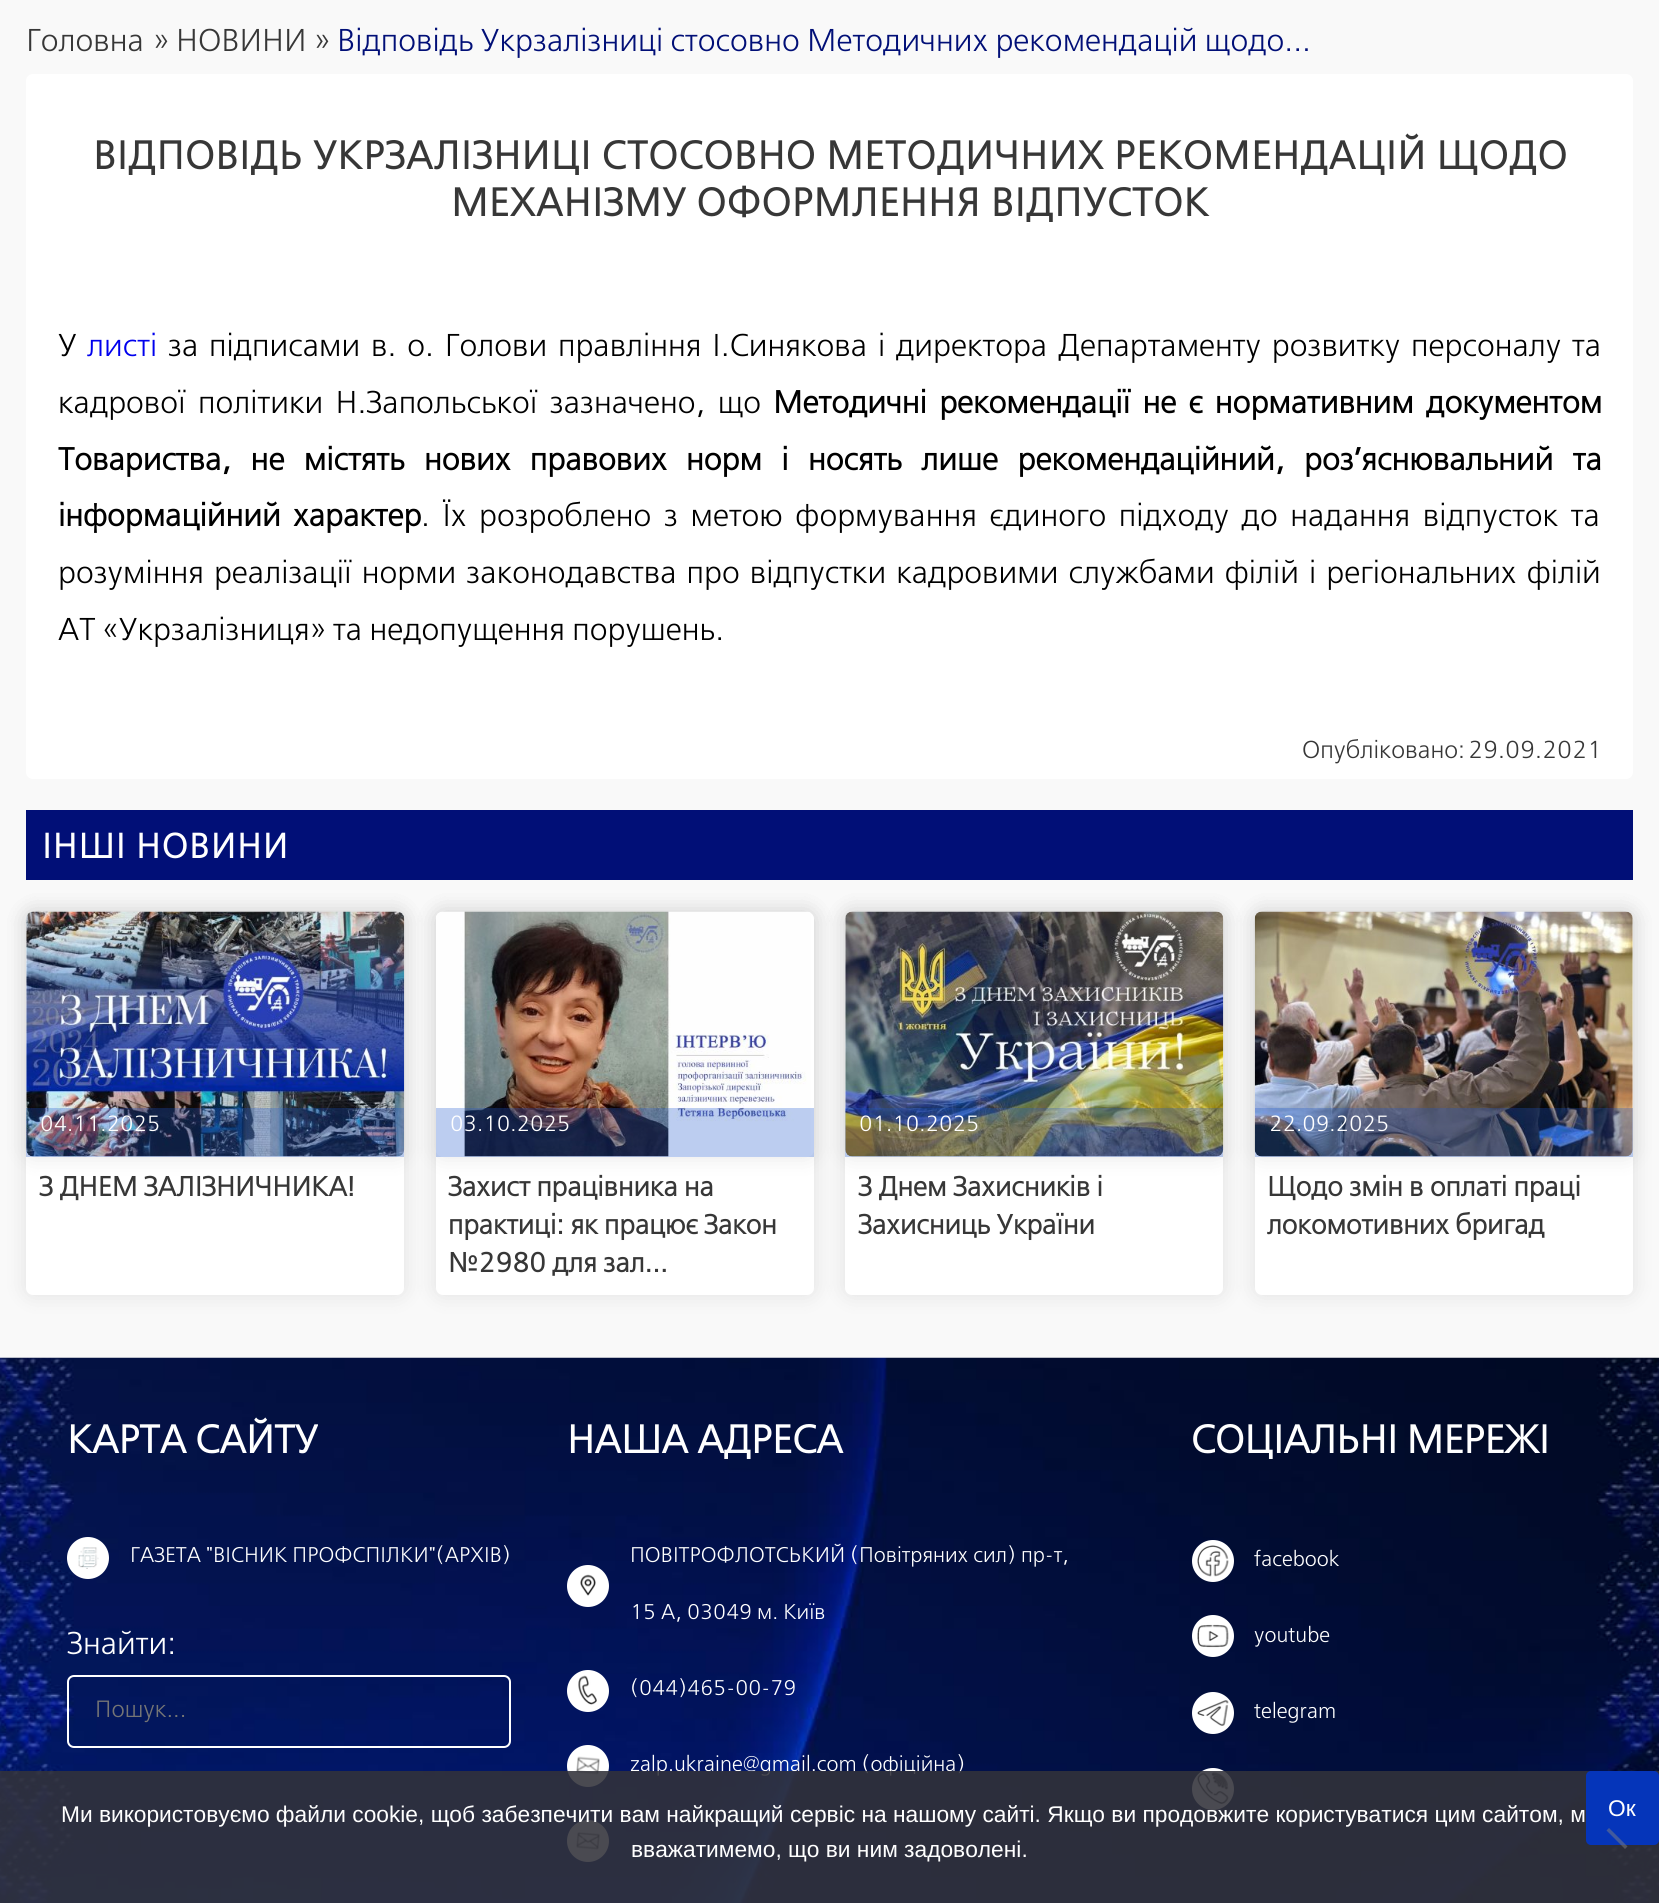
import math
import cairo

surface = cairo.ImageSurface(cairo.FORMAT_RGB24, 1659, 1903)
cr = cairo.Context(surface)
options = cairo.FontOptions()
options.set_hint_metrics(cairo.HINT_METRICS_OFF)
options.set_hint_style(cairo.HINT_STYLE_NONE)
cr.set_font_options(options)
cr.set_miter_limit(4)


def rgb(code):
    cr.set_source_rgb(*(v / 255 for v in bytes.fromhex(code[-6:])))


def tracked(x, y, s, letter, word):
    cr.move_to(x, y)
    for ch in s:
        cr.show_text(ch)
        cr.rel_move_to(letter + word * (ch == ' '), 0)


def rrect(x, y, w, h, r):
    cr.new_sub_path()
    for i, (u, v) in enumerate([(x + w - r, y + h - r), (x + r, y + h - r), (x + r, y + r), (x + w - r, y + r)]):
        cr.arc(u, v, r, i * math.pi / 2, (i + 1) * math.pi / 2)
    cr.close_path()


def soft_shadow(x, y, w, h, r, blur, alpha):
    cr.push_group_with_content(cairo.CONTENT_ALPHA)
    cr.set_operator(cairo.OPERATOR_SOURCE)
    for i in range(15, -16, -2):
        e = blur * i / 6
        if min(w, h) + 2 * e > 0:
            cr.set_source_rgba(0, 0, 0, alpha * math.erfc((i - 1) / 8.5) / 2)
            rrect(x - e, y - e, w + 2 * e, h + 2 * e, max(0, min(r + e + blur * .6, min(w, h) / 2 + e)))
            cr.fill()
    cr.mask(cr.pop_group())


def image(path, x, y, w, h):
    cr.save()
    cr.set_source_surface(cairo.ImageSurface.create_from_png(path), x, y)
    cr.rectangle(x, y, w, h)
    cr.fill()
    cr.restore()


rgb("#f9f9f9")
cr.paint()
rgb("#ffffff")
rrect(26, 74, 1607, 705, 7)
cr.fill()
rgb("#010f77")
cr.rectangle(26, 810, 1607, 70)
cr.fill()
rgb("#000000")
soft_shadow(26, 912, 378, 383, 7, 10.5, 0.1)
rgb("#ffffff")
rrect(26, 912, 378, 383, 7)
cr.fill()
rgb("#000000")
soft_shadow(436, 912, 378, 383, 7, 10.5, 0.1)
rgb("#ffffff")
rrect(436, 912, 378, 383, 7)
cr.fill()
rgb("#000000")
soft_shadow(26, 912, 378, 245, 7, 10.5, 0.1)
rgb("#ffffff")
rrect(26, 912, 378, 245, 7)
cr.fill()
image("img/1.png", 26, 911, 379, 246)
cr.set_source_rgba(0.118, 0.349, 0.812, 0.29)
cr.rectangle(26, 1108, 378, 49)
cr.fill()
rgb("#000000")
soft_shadow(845, 912, 378, 383, 7, 10.5, 0.1)
rgb("#ffffff")
rrect(845, 912, 378, 383, 7)
cr.fill()
rgb("#000000")
soft_shadow(436, 912, 378, 245, 7, 10.5, 0.1)
rgb("#ffffff")
rrect(436, 912, 378, 245, 7)
cr.fill()
image("img/2.png", 436, 911, 375, 246)
cr.set_source_rgba(0.118, 0.349, 0.812, 0.29)
cr.rectangle(436, 1108, 378, 49)
cr.fill()
rgb("#000000")
soft_shadow(1255, 912, 378, 383, 7, 10.5, 0.1)
rgb("#ffffff")
rrect(1255, 912, 378, 383, 7)
cr.fill()
rgb("#000000")
soft_shadow(845, 912, 378, 245, 7, 10.5, 0.1)
rgb("#ffffff")
rrect(845, 912, 378, 245, 7)
cr.fill()
image("img/3.png", 845, 911, 379, 246)
cr.set_source_rgba(0.118, 0.349, 0.812, 0.29)
cr.rectangle(845, 1108, 378, 49)
cr.fill()
rgb("#000000")
soft_shadow(1255, 912, 378, 245, 7, 10.5, 0.1)
rgb("#ffffff")
rrect(1255, 912, 378, 245, 7)
cr.fill()
image("img/4.png", 1254, 911, 379, 246)
cr.set_source_rgba(0.118, 0.349, 0.812, 0.29)
cr.rectangle(1255, 1108, 378, 49)
cr.fill()
image("img/5.png", 0, 1357, 1659, 546)
rgb("#ffffff")
cr.arc(88, 1558, 21, 0, 2 * math.pi)
cr.fill()
image("img/6.png", 78, 1547, 21, 22)
rrect(68, 1676, 442, 71, 6)
cr.stroke()
cr.arc(588, 1586, 21, 0, 2 * math.pi)
cr.fill()
image("img/7.png", 580, 1574, 16, 22)
cr.arc(588, 1691, 21, 0, 2 * math.pi)
cr.fill()
image("img/8.png", 578, 1675, 19, 30)
cr.arc(588, 1766, 21, 0, 2 * math.pi)
cr.fill()
image("img/9.png", 576, 1756, 24, 19)
cr.arc(588, 1841, 21, 0, 2 * math.pi)
cr.fill()
image("img/10.png", 576, 1832, 24, 18)
cr.arc(1213, 1561, 21, 0, 2 * math.pi)
cr.fill()
image("img/11.png", 1197, 1545, 32, 32)
cr.arc(1213, 1636, 21, 0, 2 * math.pi)
cr.fill()
image("img/12.png", 1197, 1624, 32, 24)
cr.arc(1213, 1713, 21, 0, 2 * math.pi)
cr.fill()
image("img/13.png", 1197, 1700, 32, 26)
cr.arc(1213, 1789, 21, 0, 2 * math.pi)
cr.fill()
image("img/14.png", 1197, 1772, 32, 32)
cr.select_font_face("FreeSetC")
cr.set_font_size(31.5)
rgb("#373737")
for x, y, s in [
    (26, 51, "Головна"),
    (153, 51, "»"),
    (176, 51, "НОВИНИ"),
    (314, 51, "»"),
]:
    cr.move_to(x, y)
    cr.show_text(s)
rgb("#010f77")
cr.move_to(337, 51)
cr.show_text("Відповідь Укрзалізниці стосовно Методичних рекомендацій щодо...")
cr.select_font_face("FreeSetC", cairo.FONT_SLANT_NORMAL, cairo.FONT_WEIGHT_BOLD)
cr.set_font_size(39.4)
rgb("#373737")
tracked(93, 169, "ВІДПОВІДЬ УКРЗАЛІЗНИЦІ СТОСОВНО МЕТОДИЧНИХ РЕКОМЕНДАЦІЙ ЩОДО", 0.95, 0)
tracked(451, 216, "МЕХАНІЗМУ ОФОРМЛЕННЯ ВІДПУСТОК", 0.95, 0)
cr.select_font_face("FreeSetC")
cr.set_font_size(31.5)
rgb("#000000")
cr.move_to(58, 356)
cr.show_text("У")
rgb("#0000ee")
cr.move_to(87, 356)
cr.show_text("листі")
rgb("#000000")
tracked(168, 356, "за підписами в. о. Голови правління І.Синякова і директора Департаменту розвитку персоналу та", 0, 3.5)
tracked(58, 413, "кадрової політики Н.Запольської зазначено, що", 0, 5)
cr.select_font_face("FreeSetC", cairo.FONT_SLANT_NORMAL, cairo.FONT_WEIGHT_BOLD)
tracked(773, 413, "Методичні рекомендації не є нормативним документом", 0, 5)
tracked(58, 470, "Товариства, не містять нових правових норм і носять лише рекомендаційний, роз’яснювальний та", 0, 12.1)
tracked(58, 526, "інформаційний характер", 0, 5)
cr.select_font_face("FreeSetC")
tracked(421, 526, ". Їх розроблено з метою формування єдиного підходу до надання відпусток та", 0, 5.25)
tracked(58, 583, "розуміння реалізації норми законодавства про відпустки кадровими службами філій і регіональних філій", 0, 2.75)
cr.move_to(58, 640)
cr.show_text("АТ «Укрзалізниця» та недопущення порушень.")
cr.set_font_size(24.5)
rgb("#373737")
cr.move_to(1302, 758)
cr.show_text("Опубліковано:")
cr.move_to(1468, 758)
cr.show_text("29.09.2021")
cr.select_font_face("FreeSetC", cairo.FONT_SLANT_NORMAL, cairo.FONT_WEIGHT_BOLD)
cr.set_font_size(34.75)
rgb("#ffffff")
tracked(42, 858, "ІНШІ НОВИНИ", 1.5, 0)
cr.select_font_face("FreeSetC")
cr.set_font_size(22)
cr.move_to(40, 1131)
cr.show_text("04.11.2025")
cr.select_font_face("FreeSetC", cairo.FONT_SLANT_NORMAL, cairo.FONT_WEIGHT_BOLD)
cr.set_font_size(27.5)
rgb("#373737")
cr.move_to(39, 1196)
cr.show_text("З ДНЕМ ЗАЛІЗНИЧНИКА!")
cr.select_font_face("FreeSetC")
cr.set_font_size(22)
rgb("#ffffff")
cr.move_to(450, 1131)
cr.show_text("03.10.2025")
cr.select_font_face("FreeSetC", cairo.FONT_SLANT_NORMAL, cairo.FONT_WEIGHT_BOLD)
cr.set_font_size(27.5)
rgb("#373737")
for x, y, s in [
    (448, 1196, "Захист працівника на"),
    (448, 1234, "практиці: як працює Закон"),
    (448, 1272, "№2980 для зал..."),
]:
    cr.move_to(x, y)
    cr.show_text(s)
cr.select_font_face("FreeSetC")
cr.set_font_size(22)
rgb("#ffffff")
cr.move_to(859, 1131)
cr.show_text("01.10.2025")
cr.select_font_face("FreeSetC", cairo.FONT_SLANT_NORMAL, cairo.FONT_WEIGHT_BOLD)
cr.set_font_size(27.5)
rgb("#373737")
cr.move_to(858, 1196)
cr.show_text("З Днем Захисників і")
cr.move_to(858, 1234)
cr.show_text("Захисниць України")
cr.select_font_face("FreeSetC")
cr.set_font_size(22)
rgb("#ffffff")
cr.move_to(1269, 1131)
cr.show_text("22.09.2025")
cr.select_font_face("FreeSetC", cairo.FONT_SLANT_NORMAL, cairo.FONT_WEIGHT_BOLD)
cr.set_font_size(27.5)
rgb("#373737")
cr.move_to(1267, 1196)
cr.show_text("Щодо змін в оплаті праці")
cr.move_to(1267, 1234)
cr.show_text("локомотивних бригад")
cr.set_font_size(39.4)
rgb("#ffffff")
cr.move_to(67, 1453)
cr.show_text("КАРТА САЙТУ")
cr.select_font_face("FreeSetC")
cr.set_font_size(21.25)
cr.move_to(130, 1562)
cr.show_text("ГАЗЕТА \"ВІСНИК ПРОФСПІЛКИ\"(АРХІВ)")
cr.set_font_size(31.5)
cr.move_to(67, 1654)
cr.show_text("Знайти:")
cr.set_font_size(23.5)
rgb("#757575")
cr.move_to(95, 1717)
cr.show_text("Пошук...")
cr.select_font_face("FreeSetC", cairo.FONT_SLANT_NORMAL, cairo.FONT_WEIGHT_BOLD)
cr.set_font_size(39.4)
rgb("#ffffff")
cr.move_to(567, 1453)
cr.show_text("НАША АДРЕСА")
cr.select_font_face("FreeSetC")
cr.set_font_size(21.25)
for x, y, s in [
    (630, 1562, "ПОВІТРОФЛОТСЬКИЙ (Повітряних сил) пр-т,"),
    (630, 1619, "15 А, 03049 м. Київ"),
    (630, 1695, "(044)465-00-79"),
    (630, 1771, "zalp.ukraine@gmail.com (офіційна)"),
]:
    cr.move_to(x, y)
    cr.show_text(s)
cr.select_font_face("FreeSetC", cairo.FONT_SLANT_NORMAL, cairo.FONT_WEIGHT_BOLD)
cr.set_font_size(39.4)
cr.move_to(1191, 1453)
cr.show_text("СОЦІАЛЬНІ МЕРЕЖІ")
cr.select_font_face("FreeSetC")
cr.set_font_size(21.25)
for x, y, s in [
    (1254, 1566, "facebook"),
    (1254, 1642, "youtube"),
    (1254, 1718, "telegram"),
]:
    cr.move_to(x, y)
    cr.show_text(s)
cr.set_source_rgba(0.196, 0.196, 0.227, 0.88)
cr.rectangle(0, 1771, 1659, 132)
cr.fill()
cr.select_font_face("Liberation Sans")
cr.set_font_size(22.75)
rgb("#ffffff")
cr.move_to(61, 1822)
cr.show_text("Ми використовуємо файли cookie, щоб забезпечити вам найкращий сервіс на нашому сайті. Якщо ви продовжите користуватися цим сайтом, м")
cr.move_to(631, 1857)
cr.show_text("вважатимемо, що ви ним задоволені.")
rgb("#0535ba")
rrect(1586, 1771, 73, 74, 5)
cr.fill()
rgb("#ffffff")
cr.move_to(1608, 1816)
cr.show_text("Ок")
cr.set_source_rgba(0.502, 0.502, 0.502, 0.5)
cr.new_path()
cr.move_to(1606.5, 1830.5)
cr.line_to(1609, 1828)
cr.line_to(1627.5, 1846.5)
cr.line_to(1625, 1849)
cr.close_path()
cr.fill()
surface.write_to_png("page.png")
